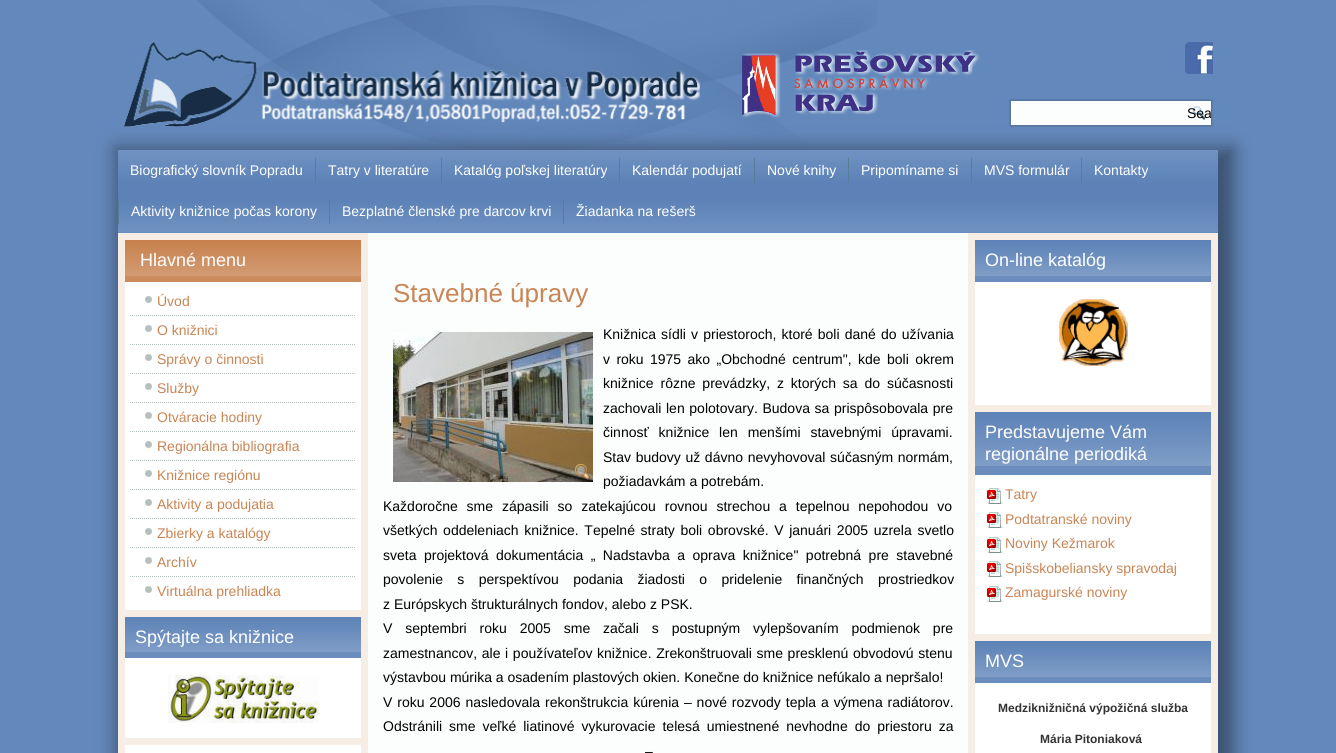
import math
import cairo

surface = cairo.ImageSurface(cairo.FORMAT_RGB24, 1336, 753)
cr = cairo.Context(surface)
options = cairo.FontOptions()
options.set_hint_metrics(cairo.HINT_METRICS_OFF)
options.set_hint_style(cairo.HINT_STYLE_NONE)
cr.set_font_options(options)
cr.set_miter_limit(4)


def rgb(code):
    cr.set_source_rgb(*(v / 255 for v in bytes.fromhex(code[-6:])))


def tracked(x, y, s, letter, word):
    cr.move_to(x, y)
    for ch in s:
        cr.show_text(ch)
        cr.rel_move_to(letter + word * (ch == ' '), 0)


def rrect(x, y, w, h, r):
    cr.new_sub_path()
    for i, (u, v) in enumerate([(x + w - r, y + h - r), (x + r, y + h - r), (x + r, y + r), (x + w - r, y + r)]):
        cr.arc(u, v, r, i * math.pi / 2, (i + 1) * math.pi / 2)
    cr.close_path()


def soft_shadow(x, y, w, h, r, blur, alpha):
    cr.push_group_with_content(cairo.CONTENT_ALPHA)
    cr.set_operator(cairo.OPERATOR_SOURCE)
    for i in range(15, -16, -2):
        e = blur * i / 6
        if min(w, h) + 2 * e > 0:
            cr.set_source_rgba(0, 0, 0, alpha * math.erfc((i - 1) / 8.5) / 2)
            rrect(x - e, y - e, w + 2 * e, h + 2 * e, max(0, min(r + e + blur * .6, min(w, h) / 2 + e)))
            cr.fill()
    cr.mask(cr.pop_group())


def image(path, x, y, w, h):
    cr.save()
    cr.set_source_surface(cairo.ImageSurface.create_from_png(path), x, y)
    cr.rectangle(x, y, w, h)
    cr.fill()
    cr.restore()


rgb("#6388bb")
cr.paint()
image("img/1.png", 197, 0, 680, 150)
rgb("#000000")
soft_shadow(116, 148, 1118, 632, 0, 9, 0.4)
image("img/2.png", 124, 41, 856, 86)
image("img/3.png", 1185, 42, 28, 32)
soft_shadow(1010, 100, 202, 26, 0, 1, 0.2)
rgb("#fcfdfd")
cr.rectangle(1011, 101, 200, 24)
cr.fill()
image("img/4.png", 1192, 106, 14, 14)
cr.rectangle(368, 233, 600, 520)
cr.fill()
gradient = cairo.LinearGradient(668, 150, 668, 233)
gradient.add_color_stop_rgba(0, 0.443, 0.573, 0.757, 1)
gradient.add_color_stop_rgba(0.4, 0.361, 0.51, 0.718, 1)
gradient.add_color_stop_rgba(0.6, 0.361, 0.51, 0.718, 1)
gradient.add_color_stop_rgba(1, 0.443, 0.573, 0.757, 1)
cr.set_source(gradient)
cr.rectangle(118, 150, 1100, 83)
cr.fill()
cr.new_path()
cr.move_to(118, 232.5)
cr.line_to(1218, 232.5)
rgb("#6388bb")
cr.set_line_width(1)
cr.set_dash([1, 1])
cr.stroke()
for x, y, w, h, color in [
    (315, 158, 1, 25, "#587e93"),
    (441, 158, 1, 25, "#587e93"),
    (619, 158, 1, 25, "#587e93"),
    (754, 158, 1, 25, "#587e93"),
    (848, 158, 1, 25, "#587e93"),
    (971, 158, 1, 25, "#587e93"),
    (1081, 158, 1, 25, "#587e93"),
    (118, 199, 1, 25, "#587e93"),
    (329, 199, 1, 25, "#587e93"),
    (563, 199, 1, 25, "#587e93"),
    (118, 233, 250, 520, "#f6ede4"),
    (125, 282, 236, 328, "#ffffff"),
]:
    rgb(color)
    cr.rectangle(x, y, w, h)
    cr.fill()
gradient = cairo.LinearGradient(243, 240, 243, 282)
gradient.add_color_stop_rgba(0, 0.78, 0.502, 0.302, 1)
gradient.add_color_stop_rgba(0.85, 0.827, 0.608, 0.451, 1)
gradient.add_color_stop_rgba(0.86, 0.8, 0.545, 0.361, 1)
gradient.add_color_stop_rgba(1, 0.8, 0.545, 0.361, 1)
cr.set_source(gradient)
cr.rectangle(125, 240, 236, 42)
cr.fill()
image("img/5.png", 145, 296, 7, 7)
cr.new_path()
cr.move_to(130, 315.5)
cr.line_to(356, 315.5)
rgb("#b5bfbe")
cr.stroke()
image("img/5.png", 145, 325, 7, 7)
cr.new_path()
cr.move_to(130, 344.5)
cr.line_to(356, 344.5)
cr.stroke()
image("img/5.png", 145, 354, 7, 7)
cr.new_path()
cr.move_to(130, 373.5)
cr.line_to(356, 373.5)
cr.stroke()
image("img/5.png", 145, 383, 7, 7)
cr.new_path()
cr.move_to(130, 402.5)
cr.line_to(356, 402.5)
cr.stroke()
image("img/5.png", 145, 412, 7, 7)
cr.new_path()
cr.move_to(130, 431.5)
cr.line_to(356, 431.5)
cr.stroke()
image("img/5.png", 145, 441, 7, 7)
cr.new_path()
cr.move_to(130, 460.5)
cr.line_to(356, 460.5)
cr.stroke()
image("img/5.png", 145, 470, 7, 7)
cr.new_path()
cr.move_to(130, 489.5)
cr.line_to(356, 489.5)
cr.stroke()
image("img/5.png", 145, 499, 7, 7)
cr.new_path()
cr.move_to(130, 518.5)
cr.line_to(356, 518.5)
cr.stroke()
image("img/5.png", 145, 528, 7, 7)
cr.new_path()
cr.move_to(130, 547.5)
cr.line_to(356, 547.5)
cr.stroke()
image("img/5.png", 145, 557, 7, 7)
cr.new_path()
cr.move_to(130, 576.5)
cr.line_to(356, 576.5)
cr.stroke()
image("img/5.png", 145, 586, 7, 7)
rgb("#ffffff")
cr.rectangle(125, 658, 236, 80)
cr.fill()
gradient = cairo.LinearGradient(243, 617, 243, 658)
gradient.add_color_stop_rgba(0, 0.361, 0.51, 0.718, 1)
gradient.add_color_stop_rgba(0.85, 0.498, 0.616, 0.78, 1)
gradient.add_color_stop_rgba(0.86, 0.416, 0.553, 0.745, 1)
gradient.add_color_stop_rgba(1, 0.416, 0.553, 0.745, 1)
cr.set_source(gradient)
cr.rectangle(125, 617, 236, 41)
cr.fill()
image("img/6.png", 168, 675, 151, 48)
rgb("#ffffff")
cr.rectangle(125, 745, 236, 8)
cr.fill()
image("img/7.png", 393, 332, 200, 150)
image("img/8.png", 575, 464, 16, 16)
rgb("#f6ede4")
cr.rectangle(968, 233, 250, 520)
cr.fill()
rgb("#ffffff")
cr.rectangle(975, 282, 236, 123)
cr.fill()
gradient = cairo.LinearGradient(1093, 240, 1093, 282)
gradient.add_color_stop_rgba(0, 0.361, 0.51, 0.718, 1)
gradient.add_color_stop_rgba(0.85, 0.498, 0.616, 0.78, 1)
gradient.add_color_stop_rgba(0.86, 0.416, 0.553, 0.745, 1)
gradient.add_color_stop_rgba(1, 0.416, 0.553, 0.745, 1)
cr.set_source(gradient)
cr.rectangle(975, 240, 236, 42)
cr.fill()
image("img/9.png", 1059, 299, 69, 67)
rgb("#ffffff")
cr.rectangle(975, 475, 236, 159)
cr.fill()
gradient = cairo.LinearGradient(1093, 412, 1093, 475)
gradient.add_color_stop_rgba(0, 0.361, 0.51, 0.718, 1)
gradient.add_color_stop_rgba(0.85, 0.498, 0.616, 0.78, 1)
gradient.add_color_stop_rgba(0.86, 0.416, 0.553, 0.745, 1)
gradient.add_color_stop_rgba(1, 0.416, 0.553, 0.745, 1)
cr.set_source(gradient)
cr.rectangle(975, 412, 236, 63)
cr.fill()
image("img/10.png", 987, 488, 16, 16)
image("img/10.png", 987, 512, 16, 16)
image("img/10.png", 987, 537, 16, 16)
image("img/10.png", 987, 561, 16, 16)
image("img/10.png", 987, 586, 16, 16)
rgb("#ffffff")
cr.rectangle(975, 683, 236, 70)
cr.fill()
gradient = cairo.LinearGradient(1093, 641, 1093, 683)
gradient.add_color_stop_rgba(0, 0.361, 0.51, 0.718, 1)
gradient.add_color_stop_rgba(0.85, 0.498, 0.616, 0.78, 1)
gradient.add_color_stop_rgba(0.86, 0.416, 0.553, 0.745, 1)
gradient.add_color_stop_rgba(1, 0.416, 0.553, 0.745, 1)
cr.set_source(gradient)
cr.rectangle(975, 641, 236, 42)
cr.fill()
cr.save()
cr.rectangle(1187, 101, 24, 24)
cr.clip()
cr.select_font_face("Liberation Sans")
cr.set_font_size(14)
rgb("#000000")
cr.move_to(1187, 118)
cr.show_text("Sea")
cr.restore()
cr.select_font_face("Liberation Sans")
cr.set_font_size(14)
rgb("#ffffff")
for x, y, s in [
    (130, 175, "Biografický slovník Popradu"),
    (328, 175, "Tatry v literatúre"),
    (454, 175, "Katalóg poľskej literatúry"),
    (632, 175, "Kalendár podujatí"),
    (767, 175, "Nové knihy"),
    (861, 175, "Pripomíname si"),
    (984, 175, "MVS formulár"),
    (1094, 175, "Kontakty"),
    (131, 216, "Aktivity knižnice počas korony"),
    (342, 216, "Bezplatné členské pre darcov krvi"),
    (576, 216, "Žiadanka na rešerš"),
]:
    cr.move_to(x, y)
    cr.show_text(s)
cr.set_font_size(18)
cr.move_to(140, 266)
cr.show_text("Hlavné menu")
cr.set_font_size(14)
rgb("#c98554")
for x, y, s in [
    (157, 306, "Úvod"),
    (157, 335, "O knižnici"),
    (157, 364, "Správy o činnosti"),
    (157, 393, "Služby"),
    (157, 422, "Otváracie hodiny"),
    (157, 451, "Regionálna bibliografia"),
    (157, 480, "Knižnice regiónu"),
    (157, 509, "Aktivity a podujatia"),
    (157, 538, "Zbierky a katalógy"),
    (157, 567, "Archív"),
    (157, 596, "Virtuálna prehliadka"),
]:
    cr.move_to(x, y)
    cr.show_text(s)
cr.set_font_size(18)
rgb("#ffffff")
cr.move_to(135, 643)
cr.show_text("Spýtajte sa knižnice")
cr.set_font_size(26)
rgb("#c98554")
cr.move_to(393, 302)
cr.show_text("Stavebné úpravy")
cr.set_font_size(14)
rgb("#000000")
tracked(603, 339, "Knižnica sídli v priestoroch, ktoré boli dané do užívania", 0, 1.25)
tracked(603, 364, "v roku 1975 ako „Obchodné centrum\", kde boli okrem", 0, 2.5)
tracked(603, 388, "knižnice rôzne prevádzky, z ktorých sa do súčasnosti", 0, 3)
tracked(603, 413, "zachovali len polotovary. Budova sa prispôsobovala pre", 0, 0.75)
tracked(603, 437, "činnosť knižnice len menšími stavebnými úpravami.", 0, 6)
tracked(603, 462, "Stav budovy už dávno nevyhovoval súčasným normám,", 0, 0.75)
cr.move_to(603, 486)
cr.show_text("požiadavkám a potrebám.")
tracked(383, 511, "Každoročne sme zápasili so zatekajúcou rovnou strechou a tepelnou nepohodou vo", 0, 5)
tracked(383, 535, "všetkých oddeleniach knižnice. Tepelné straty boli obrovské. V januári 2005 uzrela svetlo", 0, 1.75)
tracked(383, 560, "sveta projektová dokumentácia „ Nadstavba a oprava knižnice\" potrebná pre stavebné", 0, 3.6)
tracked(383, 584, "povolenie s perspektívou podania žiadosti o pridelenie finančných prostriedkov", 0, 10.5)
cr.move_to(383, 609)
cr.show_text("z Európskych štrukturálnych fondov, alebo z PSK.")
tracked(383, 633, "V septembri roku 2005 sme začali s postupným vylepšovaním podmienok pre", 0, 9)
tracked(383, 658, "zamestnancov, ale i používateľov knižnice. Zrekonštruovali sme presklenú obvodovú stenu", 0, 0.75)
cr.move_to(383, 682)
cr.show_text("výstavbou múrika a osadením plastových okien. Konečne do knižnice nefúkalo a nepršalo!")
tracked(383, 707, "V roku 2006 nasledovala rekonštrukcia kúrenia – nové rozvody tepla a výmena radiátorov.", 0, 1)
tracked(383, 731, "Odstránili sme veľké liatinové vykurovacie telesá umiestnené nevhodne do priestoru za", 0, 3.1)
cr.move_to(645, 756)
cr.show_text("–")
cr.set_font_size(18)
rgb("#ffffff")
for x, y, s in [
    (985, 266, "On-line katalóg"),
    (985, 438, "Predstavujeme Vám"),
    (985, 460, "regionálne periodiká"),
]:
    cr.move_to(x, y)
    cr.show_text(s)
cr.set_font_size(14)
rgb("#c98554")
for x, y, s in [
    (1005, 499, "Tatry"),
    (1005, 524, "Podtatranské noviny"),
    (1005, 548, "Noviny Kežmarok"),
    (1005, 573, "Spišskobeliansky spravodaj"),
    (1005, 597, "Zamagurské noviny"),
]:
    cr.move_to(x, y)
    cr.show_text(s)
cr.set_font_size(18)
rgb("#ffffff")
cr.move_to(985, 667)
cr.show_text("MVS")
cr.select_font_face("Liberation Sans", cairo.FONT_SLANT_NORMAL, cairo.FONT_WEIGHT_BOLD)
cr.set_font_size(12)
rgb("#333333")
cr.move_to(998, 712)
cr.show_text("Medziknižničná výpožičná služba")
cr.move_to(1040, 743)
cr.show_text("Mária Pitoniaková")
surface.write_to_png("page.png")
